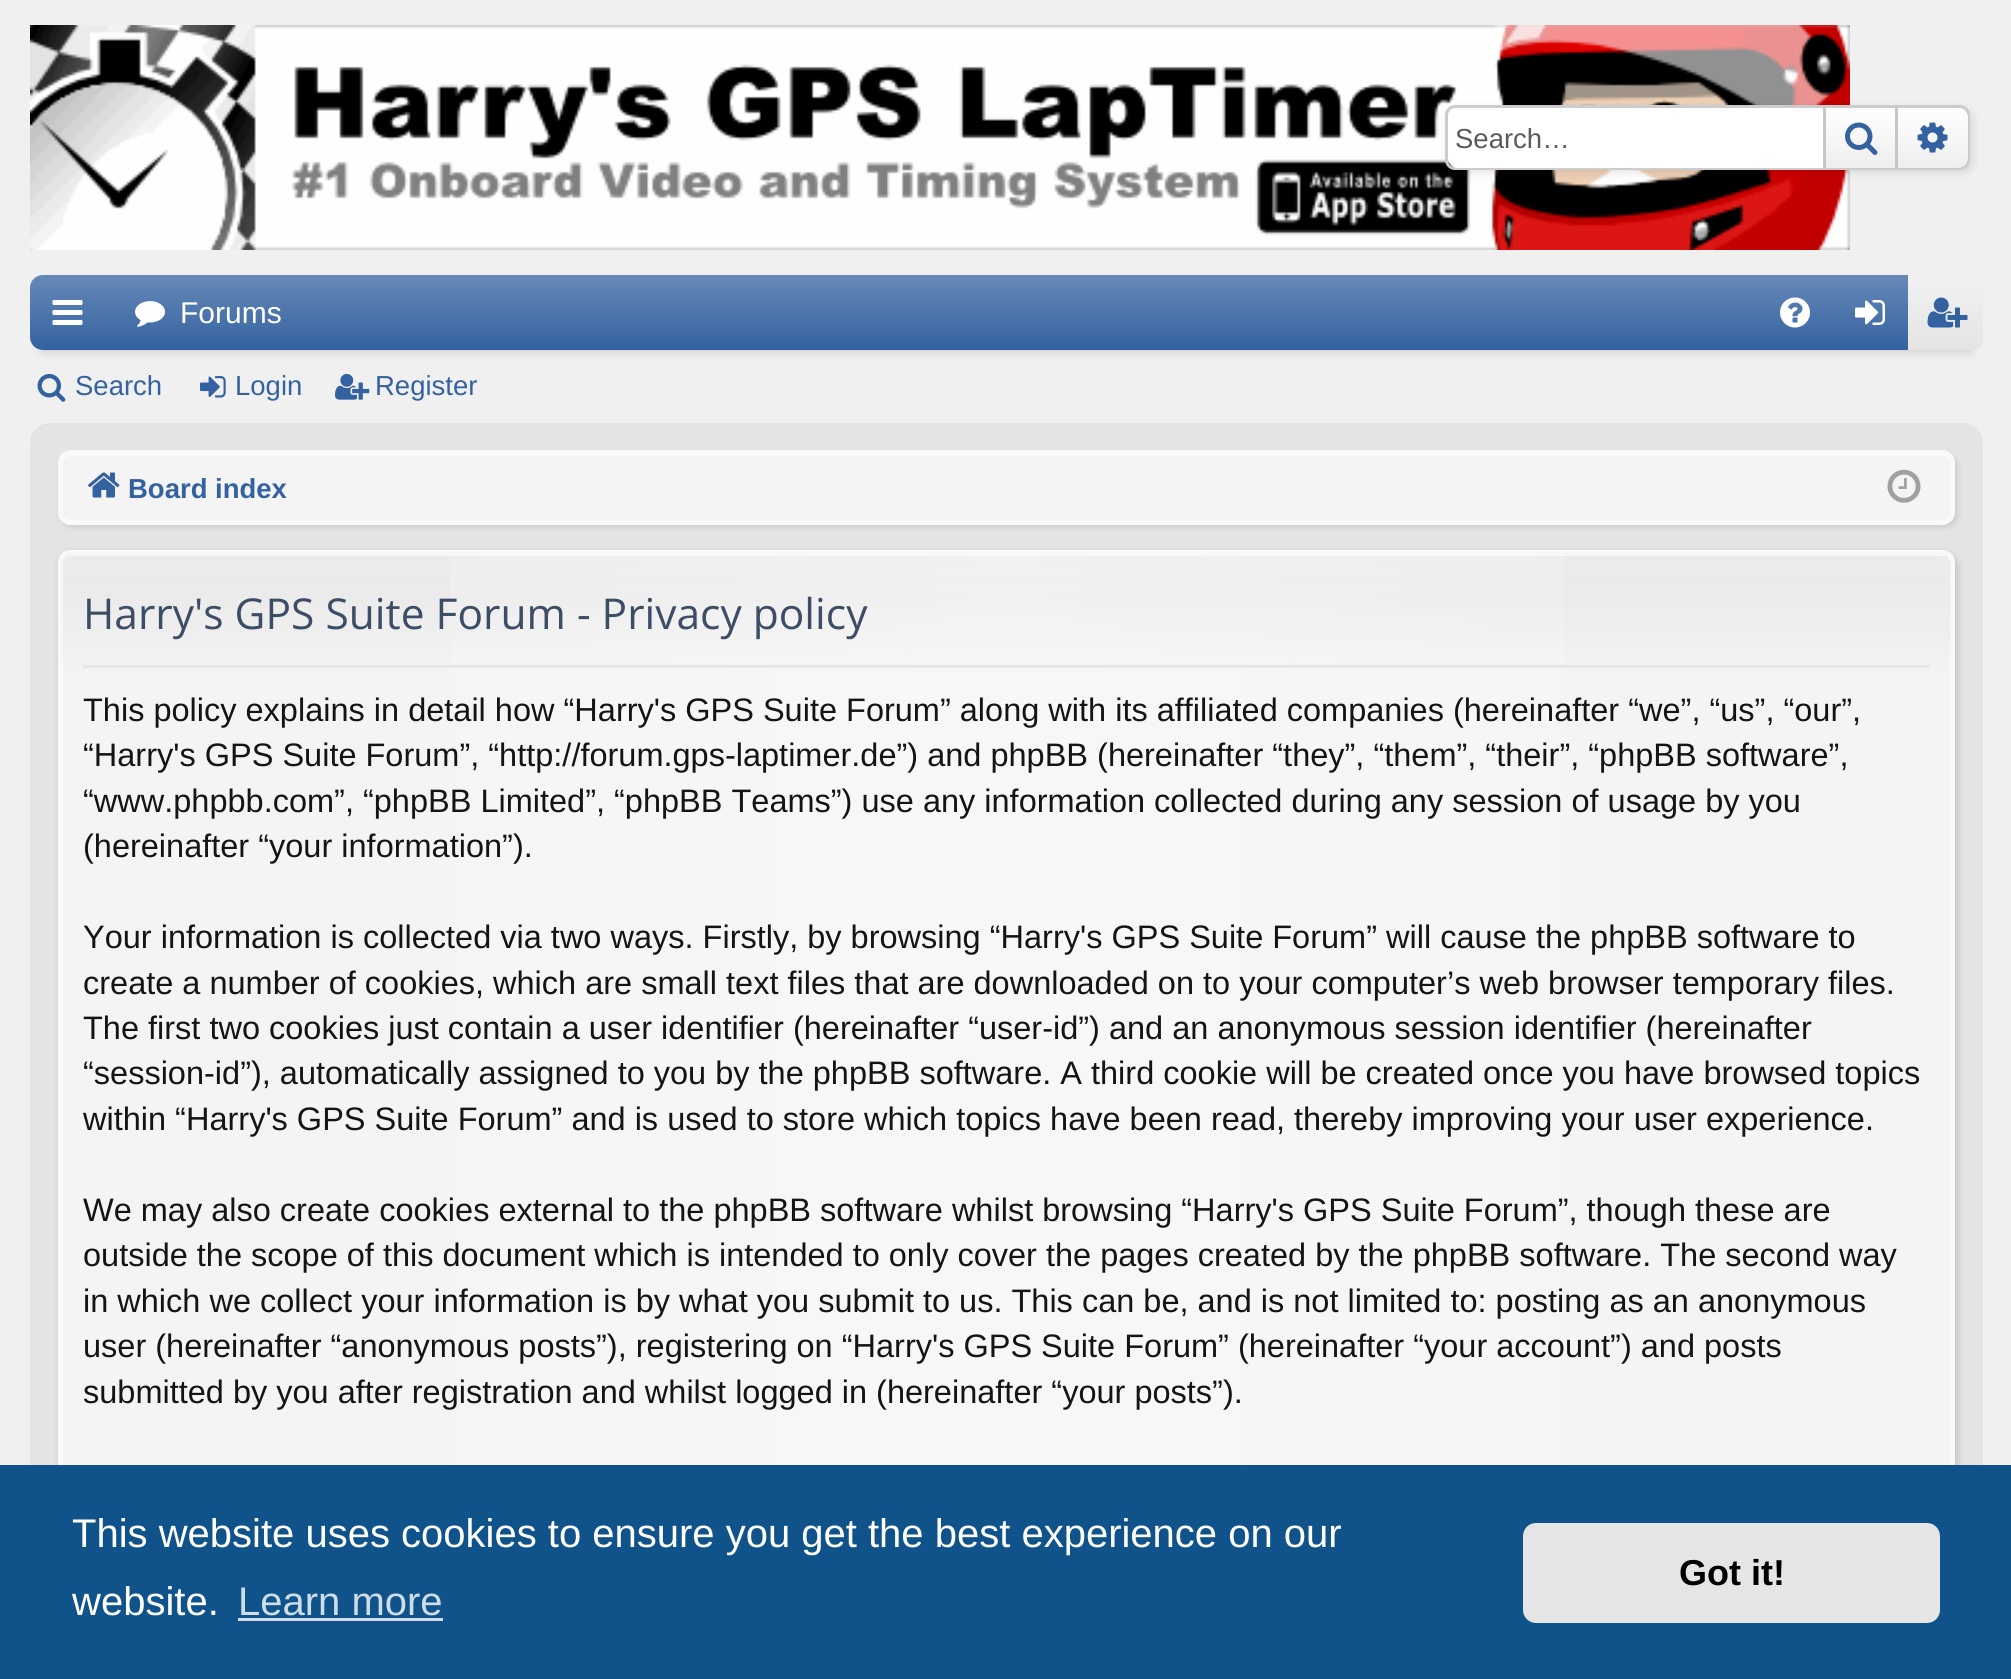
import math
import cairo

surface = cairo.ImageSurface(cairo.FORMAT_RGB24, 2011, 1679)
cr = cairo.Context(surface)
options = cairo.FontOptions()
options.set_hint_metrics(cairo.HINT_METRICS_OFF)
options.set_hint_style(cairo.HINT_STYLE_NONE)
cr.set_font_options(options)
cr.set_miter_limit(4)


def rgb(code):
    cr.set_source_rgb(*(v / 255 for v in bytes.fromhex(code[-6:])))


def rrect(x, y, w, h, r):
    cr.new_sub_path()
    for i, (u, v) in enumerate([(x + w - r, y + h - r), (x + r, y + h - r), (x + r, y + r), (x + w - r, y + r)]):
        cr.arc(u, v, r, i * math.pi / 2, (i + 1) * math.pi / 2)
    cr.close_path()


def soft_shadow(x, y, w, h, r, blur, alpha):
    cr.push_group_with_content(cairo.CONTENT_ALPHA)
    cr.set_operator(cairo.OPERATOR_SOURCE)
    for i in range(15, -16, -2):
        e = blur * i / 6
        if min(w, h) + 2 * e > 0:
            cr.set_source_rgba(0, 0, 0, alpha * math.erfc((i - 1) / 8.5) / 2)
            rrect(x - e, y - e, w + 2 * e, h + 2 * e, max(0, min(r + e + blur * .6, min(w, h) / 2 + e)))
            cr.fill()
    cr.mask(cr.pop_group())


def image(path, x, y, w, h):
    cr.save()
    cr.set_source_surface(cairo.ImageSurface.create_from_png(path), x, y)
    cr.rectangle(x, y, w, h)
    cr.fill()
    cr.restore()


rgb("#f0f0f0")
cr.paint()
image("img/1.png", 30, 25, 1820, 225)
rgb("#000000")
soft_shadow(1448, 108, 525, 65, 10, 4, 0.1)
rrect(1446.5, 106.5, 522, 62, 8.5)
rgb("#cccccc")
cr.set_line_width(3)
cr.stroke()
rgb("#ffffff")
cr.new_path()
cr.move_to(1458, 108)
cr.line_to(1823, 108)
cr.line_to(1823, 168)
cr.line_to(1458, 168)
cr.curve_to(1452.5, 168, 1448, 163.5, 1448, 158)
cr.line_to(1448, 118)
cr.curve_to(1448, 112.5, 1452.5, 108, 1458, 108)
cr.close_path()
cr.fill()
gradient = cairo.LinearGradient(1860, 108, 1860, 168)
gradient.add_color_stop_rgba(0, 1, 1, 1, 1)
gradient.add_color_stop_rgba(1, 0.933, 0.933, 0.933, 1)
cr.set_source(gradient)
cr.rectangle(1826, 108, 69, 60)
cr.fill()
rgb("#c6c6c6")
cr.rectangle(1895, 108, 3, 60)
cr.fill()
cr.rectangle(1823, 108, 3, 60)
cr.fill()
image("img/2.png", 1845, 122, 33, 33)
rgb("#eeeeee")
cr.new_path()
cr.move_to(1898, 108)
cr.line_to(1958, 108)
cr.curve_to(1963.5, 108, 1968, 112.5, 1968, 118)
cr.line_to(1968, 158)
cr.curve_to(1968, 163.5, 1963.5, 168, 1958, 168)
cr.line_to(1898, 168)
cr.close_path()
cr.fill()
gradient = cairo.LinearGradient(1933, 108, 1933, 168)
gradient.add_color_stop_rgba(0, 1, 1, 1, 1)
gradient.add_color_stop_rgba(1, 1, 1, 1, 0)
cr.set_source(gradient)
cr.new_path()
cr.move_to(1898, 108)
cr.line_to(1958, 108)
cr.curve_to(1963.5, 108, 1968, 112.5, 1968, 118)
cr.line_to(1968, 158)
cr.curve_to(1968, 163.5, 1963.5, 168, 1958, 168)
cr.line_to(1898, 168)
cr.close_path()
cr.fill()
image("img/3.png", 1917, 122, 31, 31)
rgb("#000000")
soft_shadow(43, 300, 1927, 50, 0, 6, 0.2)
rgb("#3462a0")
rrect(30, 275, 1953, 75, 13)
cr.fill()
gradient = cairo.LinearGradient(1006, 275, 1006, 350)
gradient.add_color_stop_rgba(0, 1, 1, 1, 0.25)
gradient.add_color_stop_rgba(1, 1, 1, 1, 0)
cr.set_source(gradient)
rrect(30, 275, 1953, 75, 13)
cr.fill()
image("img/4.png", 52, 300, 31, 25)
image("img/5.png", 135, 301, 30, 26)
image("img/6.png", 1780, 297, 30, 31)
image("img/7.png", 1855, 300, 30, 25)
rgb("#e4e4e4")
cr.new_path()
cr.move_to(1908, 275)
cr.line_to(1973, 275)
cr.curve_to(1978.5, 275, 1983, 279.5, 1983, 285)
cr.line_to(1983, 340)
cr.curve_to(1983, 345.5, 1978.5, 350, 1973, 350)
cr.line_to(1908, 350)
cr.close_path()
cr.fill()
gradient = cairo.LinearGradient(1945, 275, 1945, 350)
gradient.add_color_stop_rgba(0, 1, 1, 1, 0.5)
gradient.add_color_stop_rgba(1, 1, 1, 1, 0)
cr.set_source(gradient)
cr.new_path()
cr.move_to(1908, 275)
cr.line_to(1973, 275)
cr.curve_to(1978.5, 275, 1983, 279.5, 1983, 285)
cr.line_to(1983, 340)
cr.curve_to(1983, 345.5, 1978.5, 350, 1973, 350)
cr.line_to(1908, 350)
cr.close_path()
cr.fill()
image("img/8.png", 1927, 297, 41, 31)
image("img/9.png", 37, 373, 29, 29)
image("img/10.png", 200, 376, 26, 22)
image("img/11.png", 335, 373, 35, 27)
rgb("#e4e4e4")
rrect(31.5, 424.5, 1950, 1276, 18.5)
cr.fill_preserve()
cr.stroke()
rgb("#000000")
soft_shadow(60, 453, 1898, 75, 13, 2.5, 0.1)
rgb("#f4f4f4")
rrect(58, 450, 1897, 75, 13)
cr.fill()
rrect(61.5, 454.5, 1890, 67, 8.5)
rgb("#fafafa")
cr.stroke()
rrect(59.5, 451.5, 1894, 72, 11.5)
rgb("#f9f9f9")
cr.stroke()
image("img/12.png", 88, 472, 32, 26)
image("img/13.png", 1887, 469, 34, 34)
rgb("#000000")
soft_shadow(60, 553, 1898, 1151, 13, 4, 0.15)
rgb("#f4f4f4")
rrect(58, 550, 1897, 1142, 13)
cr.fill()
cr.save()
rrect(58, 550, 1897, 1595, 13)
cr.clip()
gradient = cairo.LinearGradient(1006, 552, 1006, 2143)
gradient.add_color_stop_rgba(0, 0.8, 0.8, 0.8, 0.2)
gradient.add_color_stop_rgba(0.02, 0.8, 0.8, 0.8, 0.25)
gradient.add_color_stop_rgba(0.08, 0.8, 0.8, 0.8, 0)
cr.set_source(gradient)
cr.rectangle(58, 553, 1897, 118)
cr.fill()
cr.restore()
gradient = cairo.LinearGradient(60, 1348, 1953, 1348)
gradient.add_color_stop_rgba(0, 1, 1, 1, 0)
gradient.add_color_stop_rgba(0.5, 1, 1, 1, 0.3)
gradient.add_color_stop_rgba(1, 1, 1, 1, 0)
cr.set_source(gradient)
cr.rectangle(450, 553, 1113, 912)
cr.fill()
rrect(61.5, 554.5, 1890, 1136, 8.5)
cr.set_source_rgba(1, 1, 1, 0.5)
cr.stroke()
rrect(59.5, 551.5, 1894, 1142, 11.5)
rgb("#f9f9f9")
cr.stroke()
for x, y, w, h, color in [
    (83, 665, 1847, 3, "#e7e7e7"),
    (0, 1465, 2011, 214, "#0f538a"),
    (238, 1618, 205, 3, "#cfdde8"),
]:
    rgb(color)
    cr.rectangle(x, y, w, h)
    cr.fill()
rgb("#e5e5e5")
rrect(1523, 1523, 417, 100, 13)
cr.fill()
cr.select_font_face("Liberation Sans")
cr.set_font_size(27.5)
rgb("#5b5b5b")
cr.move_to(1455, 148)
cr.show_text("Search…")
cr.set_font_size(30)
rgb("#ffffff")
cr.move_to(180, 323)
cr.show_text("Forums")
cr.set_font_size(27.5)
rgb("#3462a0")
for x, y, s in [
    (75, 395, "Search"),
    (235, 395, "Login"),
    (375, 395, "Register"),
]:
    cr.move_to(x, y)
    cr.show_text(s)
cr.select_font_face("Liberation Sans", cairo.FONT_SLANT_NORMAL, cairo.FONT_WEIGHT_BOLD)
cr.move_to(128, 498)
cr.show_text("Board index")
cr.select_font_face("Open Sans")
cr.set_font_size(42.5)
rgb("#3c4d65")
cr.move_to(83, 629)
cr.show_text("Harry's GPS Suite Forum - Privacy policy")
cr.select_font_face("Liberation Sans")
cr.set_font_size(32.5)
rgb("#141414")
for x, y, s in [
    (83, 721, "This policy explains in detail how “Harry's GPS Suite Forum” along with its affiliated companies (hereinafter “we”, “us”, “our”,"),
    (83, 766, "“Harry's GPS Suite Forum”, “http://forum.gps-laptimer.de”) and phpBB (hereinafter “they”, “them”, “their”, “phpBB software”,"),
    (83, 812, "“www.phpbb.com”, “phpBB Limited”, “phpBB Teams”) use any information collected during any session of usage by you"),
    (83, 857, "(hereinafter “your information”)."),
    (83, 948, "Your information is collected via two ways. Firstly, by browsing “Harry's GPS Suite Forum” will cause the phpBB software to"),
    (83, 994, "create a number of cookies, which are small text files that are downloaded on to your computer’s web browser temporary files."),
    (83, 1039, "The first two cookies just contain a user identifier (hereinafter “user-id”) and an anonymous session identifier (hereinafter"),
    (83, 1084, "“session-id”), automatically assigned to you by the phpBB software. A third cookie will be created once you have browsed topics"),
]:
    cr.move_to(x, y)
    cr.show_text(s)
cr.save()
cr.rectangle(83, 563, 1847, 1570)
cr.clip()
cr.move_to(83, 1130)
cr.show_text("within “Harry's GPS Suite Forum” and is used to store which topics have been read, thereby improving your user experience.")
cr.restore()
for x, y, s in [
    (83, 1221, "We may also create cookies external to the phpBB software whilst browsing “Harry's GPS Suite Forum”, though these are"),
    (83, 1266, "outside the scope of this document which is intended to only cover the pages created by the phpBB software. The second way"),
    (83, 1312, "in which we collect your information is by what you submit to us. This can be, and is not limited to: posting as an anonymous"),
    (83, 1357, "user (hereinafter “anonymous posts”), registering on “Harry's GPS Suite Forum” (hereinafter “your account”) and posts"),
    (83, 1403, "submitted by you after registration and whilst logged in (hereinafter “your posts”)."),
]:
    cr.move_to(x, y)
    cr.show_text(s)
cr.set_font_size(40)
rgb("#ffffff")
cr.move_to(72, 1547)
cr.show_text("This website uses cookies to ensure you get the best experience on our")
cr.move_to(72, 1615)
cr.show_text("website.")
rgb("#cfdde8")
cr.move_to(238, 1615)
cr.show_text("Learn more")
cr.select_font_face("Liberation Sans", cairo.FONT_SLANT_NORMAL, cairo.FONT_WEIGHT_BOLD)
cr.set_font_size(36)
rgb("#000000")
cr.move_to(1679, 1585)
cr.show_text("Got it!")
surface.write_to_png("page.png")
